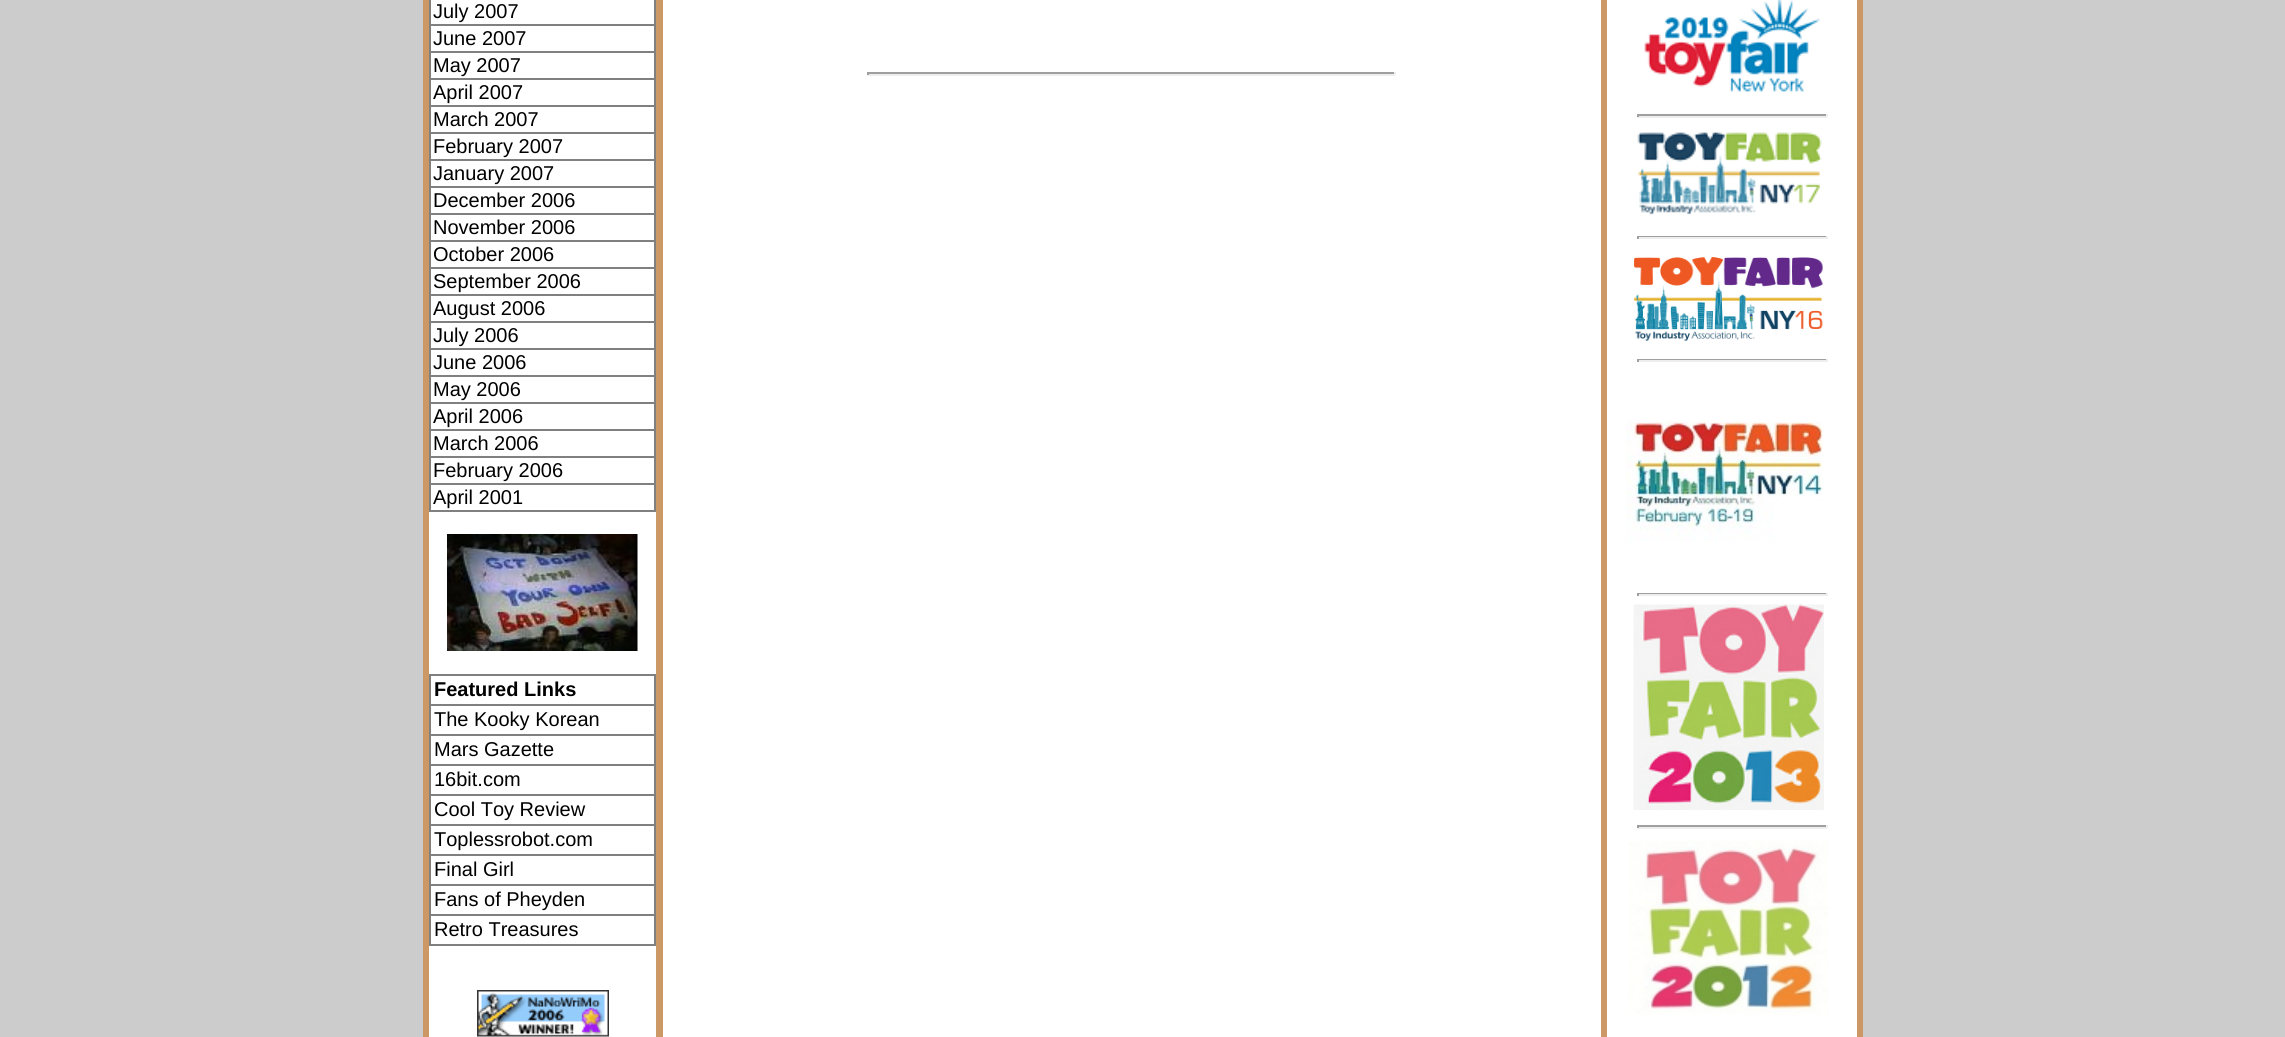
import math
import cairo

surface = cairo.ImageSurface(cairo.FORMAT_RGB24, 2285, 1037)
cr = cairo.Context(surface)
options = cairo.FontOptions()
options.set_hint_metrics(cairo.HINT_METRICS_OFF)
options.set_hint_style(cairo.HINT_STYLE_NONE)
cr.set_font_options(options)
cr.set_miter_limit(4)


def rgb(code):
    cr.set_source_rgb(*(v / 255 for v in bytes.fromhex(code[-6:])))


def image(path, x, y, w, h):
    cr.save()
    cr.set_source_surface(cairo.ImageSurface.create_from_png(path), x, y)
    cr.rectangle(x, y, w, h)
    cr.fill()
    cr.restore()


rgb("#cccccc")
cr.paint()
for x, y, w, h, color in [
    (429, 0, 1428, 1037, "#ffffff"),
    (423, 0, 6, 1037, "#cc9966"),
    (654, 0, 2, 512, "#808080"),
    (429, 510, 227, 2, "#808080"),
    (429, 0, 2, 512, "#808080"),
    (429, 24, 227, 2, "#808080"),
    (429, 51, 227, 2, "#808080"),
    (429, 78, 227, 2, "#808080"),
    (429, 105, 227, 2, "#808080"),
    (429, 132, 227, 2, "#808080"),
    (429, 159, 227, 2, "#808080"),
    (429, 186, 227, 2, "#808080"),
    (429, 213, 227, 2, "#808080"),
    (429, 240, 227, 2, "#808080"),
    (429, 267, 227, 2, "#808080"),
    (429, 294, 227, 2, "#808080"),
    (429, 321, 227, 2, "#808080"),
    (429, 348, 227, 2, "#808080"),
    (429, 375, 227, 2, "#808080"),
    (429, 402, 227, 2, "#808080"),
    (429, 429, 227, 2, "#808080"),
    (429, 456, 227, 2, "#808080"),
    (429, 483, 227, 2, "#808080"),
]:
    rgb(color)
    cr.rectangle(x, y, w, h)
    cr.fill()
image("img/1.png", 447, 534, 191, 117)
for x, y, w, h, color in [
    (429, 674, 227, 2, "#808080"),
    (654, 674, 2, 271, "#808080"),
    (429, 944, 227, 2, "#808080"),
    (429, 674, 2, 271, "#808080"),
    (429, 704, 227, 2, "#808080"),
    (429, 734, 227, 2, "#808080"),
    (429, 764, 227, 2, "#808080"),
    (429, 794, 227, 2, "#808080"),
    (429, 824, 227, 2, "#808080"),
    (429, 854, 227, 2, "#808080"),
    (429, 884, 227, 2, "#808080"),
    (429, 914, 227, 2, "#808080"),
]:
    rgb(color)
    cr.rectangle(x, y, w, h)
    cr.fill()
image("img/2.png", 477, 990, 132, 47)
for x, y, w, h, color in [
    (656, 0, 7, 1037, "#cc9966"),
    (867, 72, 528, 2, "#9f9f9f"),
    (1394, 72, 2, 3, "#eeeeee"),
    (867, 74, 528, 2, "#eeeeee"),
    (867, 72, 2, 3, "#9f9f9f"),
    (1601, 0, 6, 1037, "#cc9966"),
]:
    rgb(color)
    cr.rectangle(x, y, w, h)
    cr.fill()
image("img/3.png", 1644, 0, 177, 92)
for x, y, w, h, color in [
    (1637, 114, 190, 2, "#9f9f9f"),
    (1826, 114, 2, 3, "#eeeeee"),
    (1637, 116, 190, 2, "#eeeeee"),
    (1637, 114, 2, 3, "#9f9f9f"),
]:
    rgb(color)
    cr.rectangle(x, y, w, h)
    cr.fill()
image("img/4.png", 1637, 132, 185, 83)
for x, y, w, h, color in [
    (1637, 236, 190, 1, "#9f9f9f"),
    (1826, 236, 2, 3, "#eeeeee"),
    (1637, 237, 190, 2, "#eeeeee"),
    (1637, 236, 2, 3, "#9f9f9f"),
]:
    rgb(color)
    cr.rectangle(x, y, w, h)
    cr.fill()
image("img/5.png", 1634, 257, 189, 84)
for x, y, w, h, color in [
    (1637, 359, 190, 1, "#9f9f9f"),
    (1826, 359, 2, 3, "#eeeeee"),
    (1637, 360, 190, 2, "#eeeeee"),
    (1637, 359, 2, 3, "#9f9f9f"),
]:
    rgb(color)
    cr.rectangle(x, y, w, h)
    cr.fill()
image("img/6.png", 1626, 420, 197, 122)
for x, y, w, h, color in [
    (1637, 593, 190, 1, "#9f9f9f"),
    (1826, 593, 2, 3, "#eeeeee"),
    (1637, 594, 190, 2, "#eeeeee"),
    (1637, 593, 2, 3, "#9f9f9f"),
]:
    rgb(color)
    cr.rectangle(x, y, w, h)
    cr.fill()
image("img/7.png", 1633, 604, 191, 206)
for x, y, w, h, color in [
    (1637, 825, 190, 2, "#9f9f9f"),
    (1826, 825, 2, 3, "#eeeeee"),
    (1637, 827, 190, 2, "#eeeeee"),
    (1637, 825, 2, 3, "#9f9f9f"),
]:
    rgb(color)
    cr.rectangle(x, y, w, h)
    cr.fill()
image("img/8.png", 1629, 839, 199, 176)
rgb("#cc9966")
cr.rectangle(1857, 0, 6, 1037)
cr.fill()
cr.select_font_face("Liberation Sans")
cr.set_font_size(20)
rgb("#000000")
for x, y, s in [
    (433, 18, "July 2007"),
    (433, 45, "June 2007"),
    (433, 72, "May 2007"),
    (433, 99, "April 2007"),
    (433, 126, "March 2007"),
    (433, 153, "February 2007"),
    (433, 180, "January 2007"),
    (433, 207, "December 2006"),
    (433, 234, "November 2006"),
    (433, 261, "October 2006"),
    (433, 288, "September 2006"),
    (433, 315, "August 2006"),
    (433, 342, "July 2006"),
    (433, 369, "June 2006"),
    (433, 396, "May 2006"),
    (433, 423, "April 2006"),
    (433, 450, "March 2006"),
    (433, 477, "February 2006"),
    (433, 504, "April 2001"),
]:
    cr.move_to(x, y)
    cr.show_text(s)
cr.select_font_face("Liberation Sans", cairo.FONT_SLANT_NORMAL, cairo.FONT_WEIGHT_BOLD)
cr.move_to(434, 696)
cr.show_text("Featured Links")
cr.select_font_face("Liberation Sans")
for x, y, s in [
    (434, 726, "The Kooky Korean"),
    (434, 756, "Mars Gazette"),
    (434, 786, "16bit.com"),
    (434, 816, "Cool Toy Review"),
    (434, 846, "Toplessrobot.com"),
    (434, 876, "Final Girl"),
    (434, 906, "Fans of Pheyden"),
    (434, 936, "Retro Treasures"),
]:
    cr.move_to(x, y)
    cr.show_text(s)
surface.write_to_png("page.png")
